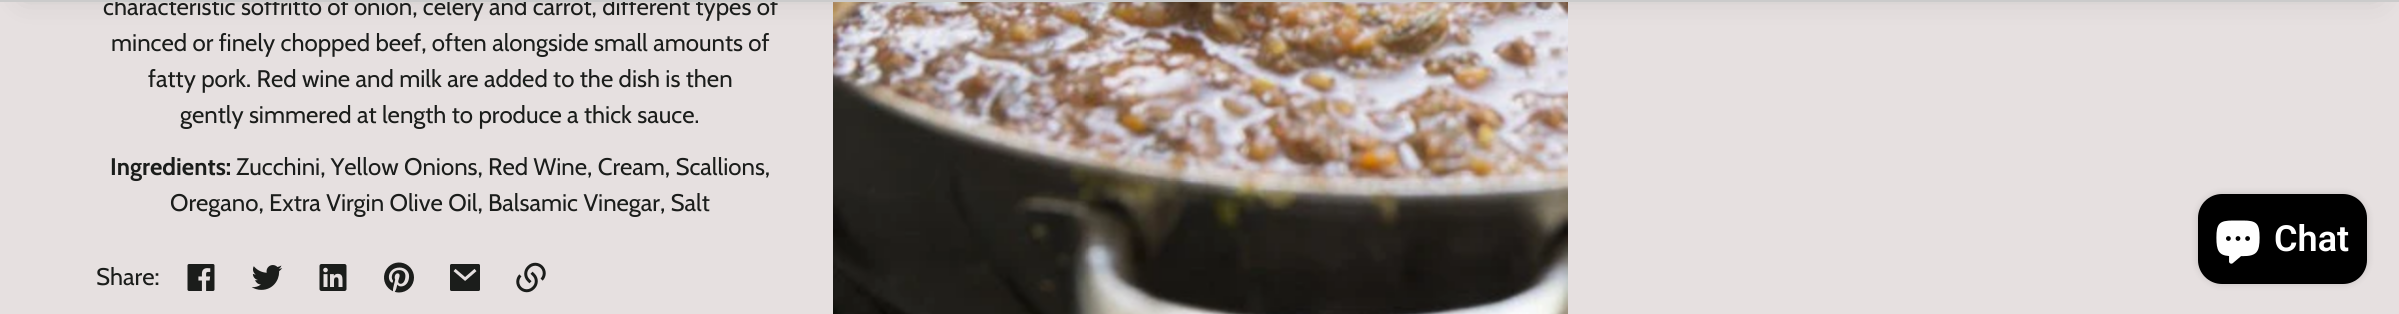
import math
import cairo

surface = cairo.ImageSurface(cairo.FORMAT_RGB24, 2399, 314)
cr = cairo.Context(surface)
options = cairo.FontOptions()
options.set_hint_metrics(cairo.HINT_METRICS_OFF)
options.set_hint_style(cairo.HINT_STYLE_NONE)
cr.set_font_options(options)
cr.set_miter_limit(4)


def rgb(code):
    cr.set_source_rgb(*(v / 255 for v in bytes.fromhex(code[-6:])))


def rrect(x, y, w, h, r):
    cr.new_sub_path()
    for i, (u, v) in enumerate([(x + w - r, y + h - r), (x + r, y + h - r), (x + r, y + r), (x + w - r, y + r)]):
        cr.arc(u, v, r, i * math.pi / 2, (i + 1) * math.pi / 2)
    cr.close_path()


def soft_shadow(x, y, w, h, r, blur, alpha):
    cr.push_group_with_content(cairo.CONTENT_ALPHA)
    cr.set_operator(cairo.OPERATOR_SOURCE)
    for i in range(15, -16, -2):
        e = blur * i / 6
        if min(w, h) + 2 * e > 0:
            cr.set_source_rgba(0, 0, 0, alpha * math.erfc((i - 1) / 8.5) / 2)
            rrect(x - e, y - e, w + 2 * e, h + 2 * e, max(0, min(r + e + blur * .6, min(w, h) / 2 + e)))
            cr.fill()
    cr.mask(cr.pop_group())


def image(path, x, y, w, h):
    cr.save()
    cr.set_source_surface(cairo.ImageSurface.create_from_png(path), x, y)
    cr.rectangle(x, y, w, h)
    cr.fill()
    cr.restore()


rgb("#e6e0e0")
cr.paint()
image("img/7.png", 833, 2, 735, 312)
rgb("#1b1d1b")
soft_shadow(23, -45, 2355, 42, 0, 15, 0.15)
image("img/1.png", 187, 264, 28, 27)
image("img/2.png", 251, 265, 32, 25)
image("img/3.png", 319, 264, 28, 27)
image("img/4.png", 384, 262, 30, 31)
image("img/5.png", 450, 264, 30, 27)
image("img/6.png", 516, 262, 30, 31)
rgb("#000000")
soft_shadow(2198, 194, 169, 90, 24, 4, 0.15)
rgb("#000000")
rrect(2198, 194, 169, 90, 24)
cr.fill()
image("img/8.png", 2216, 220, 44, 44)
cr.select_font_face("Cabin")
cr.set_font_size(24)
rgb("#1b1d1b")
cr.move_to(103, 15)
cr.show_text("characteristic soffritto of onion, celery and carrot, different types of")
rgb("#cbcbcb")
cr.rectangle(0, 0, 2399, 2)
cr.fill()
rgb("#1b1d1b")
for x, y, s in [
    (111, 51, "minced or finely chopped beef, often alongside small amounts of"),
    (148, 87, "fatty pork. Red wine and milk are added to the dish is then"),
    (180, 123, "gently simmered at length to produce a thick sauce."),
]:
    cr.move_to(x, y)
    cr.show_text(s)
cr.select_font_face("Cabin", cairo.FONT_SLANT_NORMAL, cairo.FONT_WEIGHT_BOLD)
cr.move_to(110, 175)
cr.show_text("Ingredients:")
cr.select_font_face("Cabin")
for x, y, s in [
    (236, 175, "Zucchini, Yellow Onions, Red Wine, Cream, Scallions,"),
    (170, 211, "Oregano, Extra Virgin Olive Oil, Balsamic Vinegar, Salt"),
    (96, 285, "Share:"),
]:
    cr.move_to(x, y)
    cr.show_text(s)
cr.select_font_face("Roboto SemiBold")
cr.set_font_size(36)
rgb("#ffffff")
cr.move_to(2274, 251)
cr.show_text("Chat")
surface.write_to_png("page.png")
